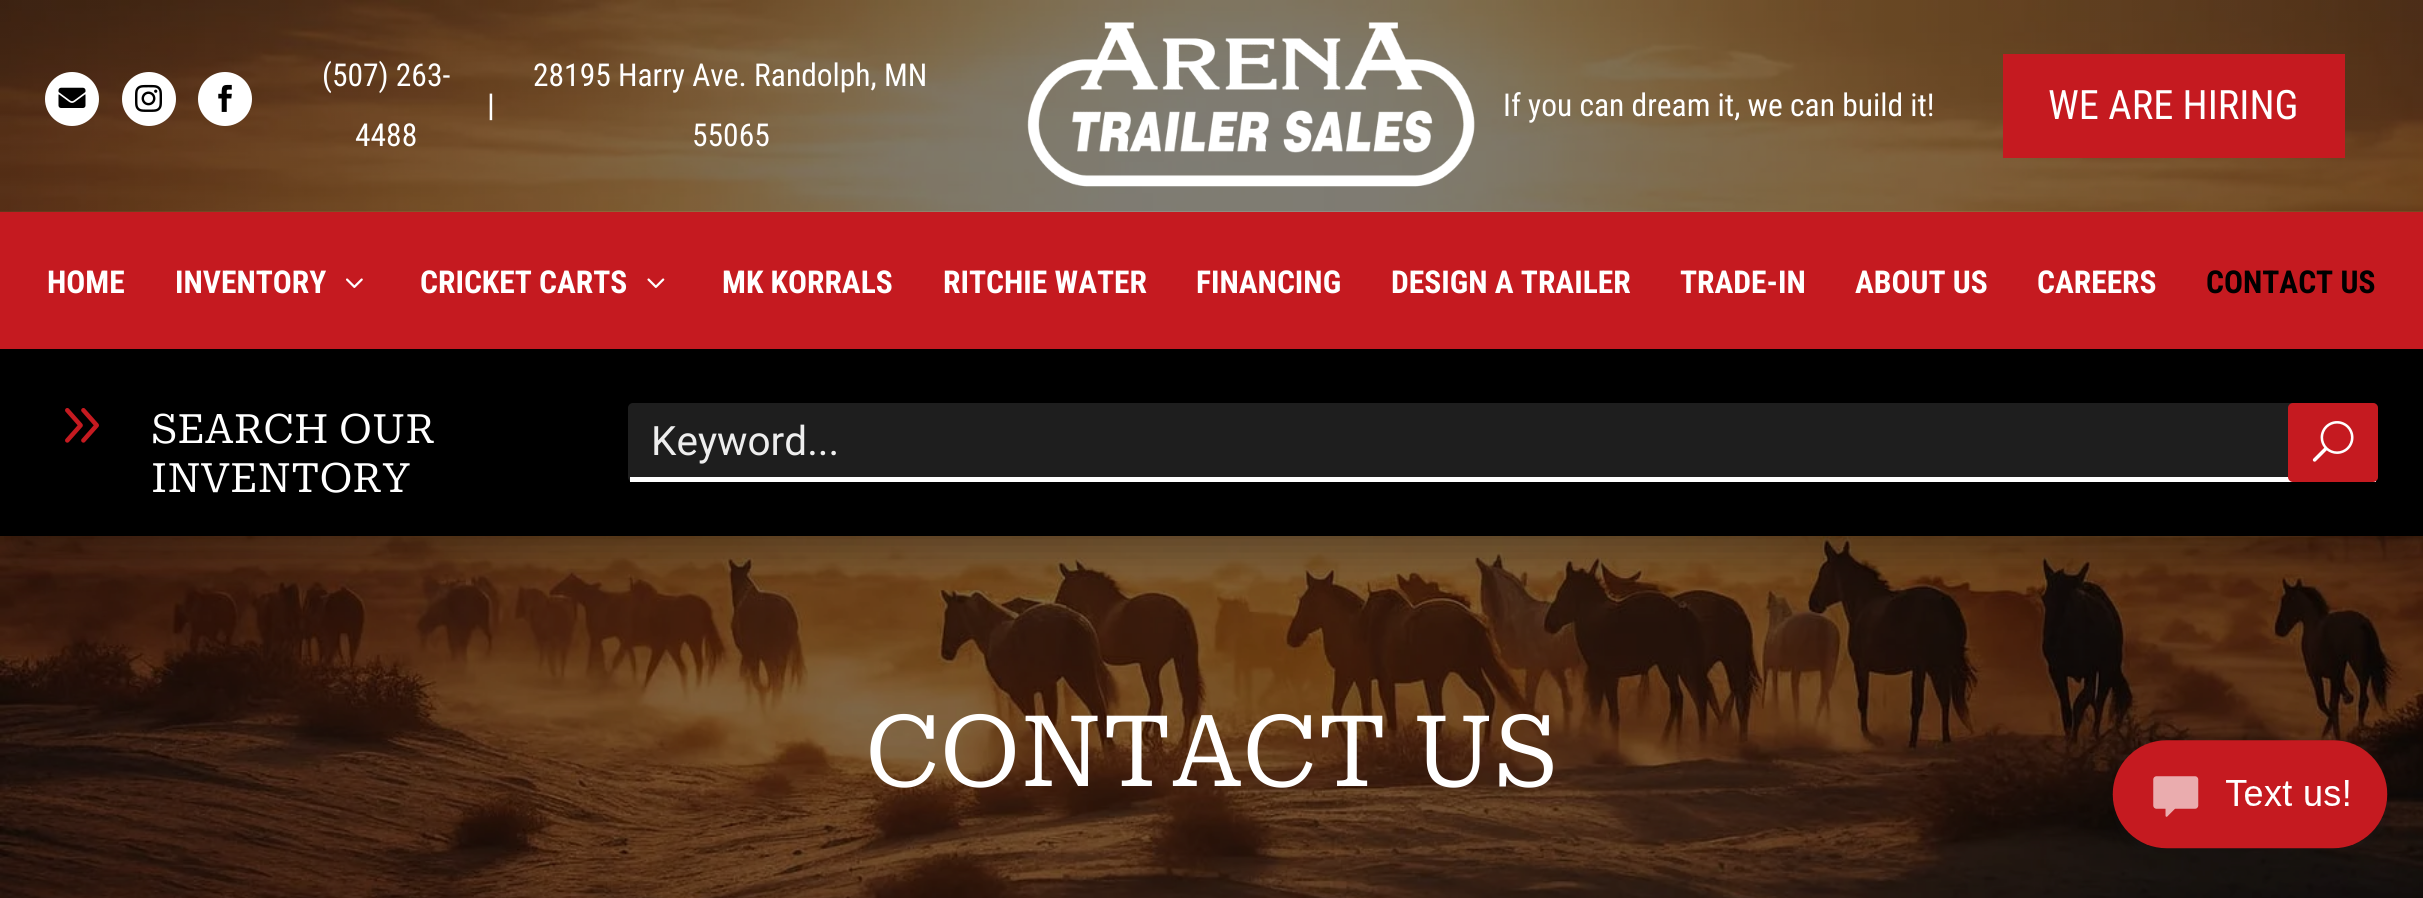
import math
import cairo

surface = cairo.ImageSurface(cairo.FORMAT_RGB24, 2423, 898)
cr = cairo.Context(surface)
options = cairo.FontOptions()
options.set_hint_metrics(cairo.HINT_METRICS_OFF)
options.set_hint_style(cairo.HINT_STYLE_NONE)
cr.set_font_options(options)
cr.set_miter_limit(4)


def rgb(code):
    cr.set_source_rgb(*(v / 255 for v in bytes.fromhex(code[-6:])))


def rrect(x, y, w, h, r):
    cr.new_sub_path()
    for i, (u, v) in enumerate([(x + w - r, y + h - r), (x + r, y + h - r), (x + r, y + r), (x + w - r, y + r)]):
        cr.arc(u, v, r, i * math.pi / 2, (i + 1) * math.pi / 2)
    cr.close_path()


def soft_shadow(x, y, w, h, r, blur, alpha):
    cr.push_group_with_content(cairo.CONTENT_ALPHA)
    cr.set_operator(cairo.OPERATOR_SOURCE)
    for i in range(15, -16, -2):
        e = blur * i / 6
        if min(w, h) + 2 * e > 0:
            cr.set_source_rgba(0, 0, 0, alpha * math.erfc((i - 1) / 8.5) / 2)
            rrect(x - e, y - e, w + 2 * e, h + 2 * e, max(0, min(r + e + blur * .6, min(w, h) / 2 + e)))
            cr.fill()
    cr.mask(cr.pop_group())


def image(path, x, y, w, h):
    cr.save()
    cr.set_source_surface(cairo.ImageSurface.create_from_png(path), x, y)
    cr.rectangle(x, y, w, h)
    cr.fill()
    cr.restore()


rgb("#ffffff")
cr.paint()
image("img/10.png", 0, 211, 2423, 687)
image("img/1.png", 0, 0, 2423, 212)
rgb("#ffffff")
cr.arc(72, 99, 27, 0, 2 * math.pi)
cr.fill()
image("img/2.png", 58, 87, 28, 21)
cr.arc(149, 99, 27, 0, 2 * math.pi)
cr.fill()
image("img/3.png", 135, 84, 27, 28)
cr.arc(225, 99, 27, 0, 2 * math.pi)
cr.fill()
image("img/4.png", 218, 84, 14, 28)
image("img/5.png", 1027, 22, 448, 165)
rgb("#c51a20")
cr.rectangle(2003, 54, 342, 104)
cr.fill()
cr.rectangle(0, 212, 2423, 137)
cr.fill()
image("img/6.png", 346, 278, 17, 10)
image("img/7.png", 647, 278, 18, 10)
rgb("#000000")
soft_shadow(14, 389, 2396, 160, 0, 20, 0.3)
rgb("#000000")
cr.rectangle(0, 349, 2423, 187)
cr.fill()
image("img/8.png", 65, 408, 34, 35)
rgb("#1e1e1e")
rrect(628, 403, 1750, 79, 5)
cr.fill()
rgb("#ffffff")
cr.rectangle(630, 477, 1746, 5)
cr.fill()
rgb("#c51a20")
rrect(2288, 403, 90, 79, 5)
cr.fill()
image("img/9.png", 2312, 421, 42, 41)
image("img/11.png", 2112, 737, 279, 113)
cr.select_font_face("Roboto Condensed")
cr.set_font_size(31.5)
rgb("#ffffff")
cr.move_to(322, 86)
cr.show_text("(507) 263-")
cr.move_to(355, 146)
cr.show_text("4488")
cr.select_font_face("Roboto Medium")
cr.move_to(487, 116)
cr.show_text("|")
cr.select_font_face("Roboto Condensed")
for x, y, s in [
    (533, 86, "28195 Harry Ave. Randolph, MN"),
    (692, 146, "55065"),
    (1503, 116, "If you can dream it, we can build it!"),
]:
    cr.move_to(x, y)
    cr.show_text(s)
cr.set_font_size(40.5)
cr.move_to(2048, 119)
cr.show_text("WE ARE HIRING")
cr.select_font_face("Roboto Condensed", cairo.FONT_SLANT_NORMAL, cairo.FONT_WEIGHT_BOLD)
cr.set_font_size(31.5)
for x, y, s in [
    (47, 293, "HOME"),
    (175, 293, "INVENTORY"),
    (420, 293, "CRICKET CARTS"),
    (722, 293, "MK KORRALS"),
    (943, 293, "RITCHIE WATER"),
    (1196, 293, "FINANCING"),
    (1391, 293, "DESIGN A TRAILER"),
    (1680, 293, "TRADE-IN"),
    (1855, 293, "ABOUT US"),
    (2037, 293, "CAREERS"),
]:
    cr.move_to(x, y)
    cr.show_text(s)
rgb("#000000")
cr.move_to(2206, 293)
cr.show_text("CONTACT US")
cr.select_font_face("Roboto Serif")
cr.set_font_size(40.5)
rgb("#ffffff")
cr.move_to(151, 443)
cr.show_text("SEARCH OUR")
cr.move_to(151, 492)
cr.show_text("INVENTORY")
cr.select_font_face("Roboto")
rgb("#eeeeee")
cr.move_to(651, 455)
cr.show_text("Keyword...")
cr.select_font_face("Roboto Serif")
cr.set_font_size(99)
rgb("#ffffff")
cr.move_to(865, 786)
cr.show_text("CONTACT US")
surface.write_to_png("page.png")
